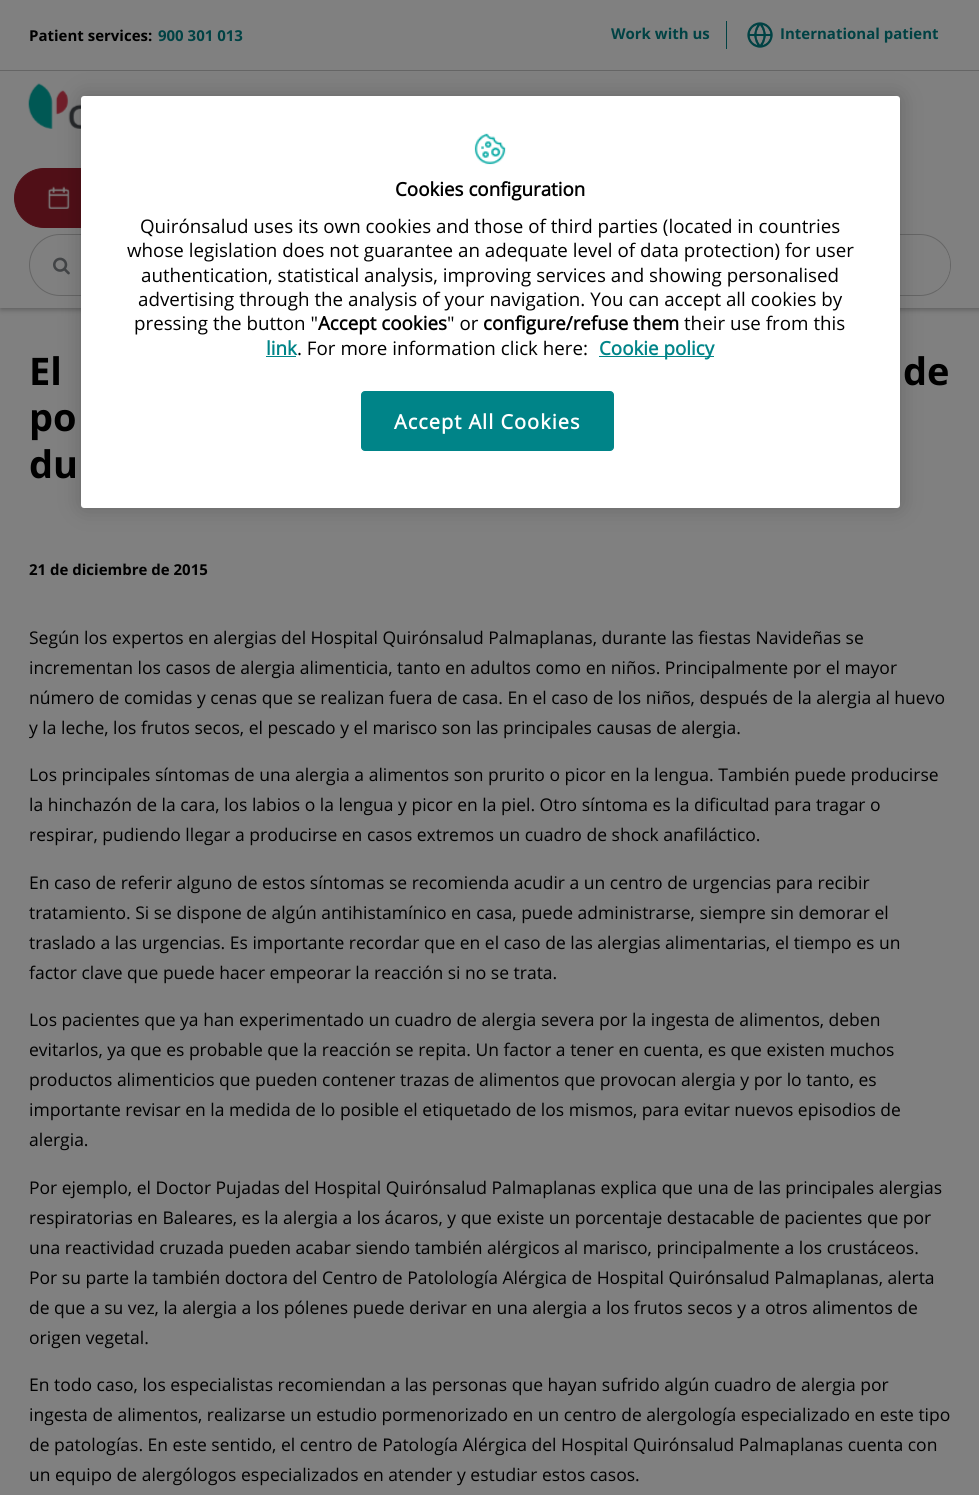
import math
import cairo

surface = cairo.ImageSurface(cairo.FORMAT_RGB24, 979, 1495)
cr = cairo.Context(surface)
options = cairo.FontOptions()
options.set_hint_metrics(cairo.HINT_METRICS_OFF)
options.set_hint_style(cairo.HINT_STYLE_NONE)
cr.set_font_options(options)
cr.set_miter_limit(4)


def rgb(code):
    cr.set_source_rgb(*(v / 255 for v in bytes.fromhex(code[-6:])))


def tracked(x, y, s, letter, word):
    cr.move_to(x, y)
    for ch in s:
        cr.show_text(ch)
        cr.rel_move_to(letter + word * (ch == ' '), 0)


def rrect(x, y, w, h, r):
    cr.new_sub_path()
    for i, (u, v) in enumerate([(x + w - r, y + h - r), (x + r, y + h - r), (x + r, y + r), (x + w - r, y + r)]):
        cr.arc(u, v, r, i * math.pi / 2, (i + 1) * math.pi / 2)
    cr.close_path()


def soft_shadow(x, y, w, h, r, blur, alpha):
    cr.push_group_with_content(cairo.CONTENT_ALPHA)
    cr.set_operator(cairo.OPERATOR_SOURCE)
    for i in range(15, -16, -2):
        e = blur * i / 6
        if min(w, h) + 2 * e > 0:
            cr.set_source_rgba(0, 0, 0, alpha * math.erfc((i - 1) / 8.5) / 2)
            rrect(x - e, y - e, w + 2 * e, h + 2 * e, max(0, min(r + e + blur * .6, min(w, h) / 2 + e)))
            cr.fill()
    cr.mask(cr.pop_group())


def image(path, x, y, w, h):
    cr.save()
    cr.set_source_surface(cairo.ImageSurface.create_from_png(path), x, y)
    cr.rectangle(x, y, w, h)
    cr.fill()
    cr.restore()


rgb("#808080")
cr.paint()
rgb("#000000")
soft_shadow(1, 1, 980, 308, 0, 3, 0.33)
for x, y, w, h, color in [
    (0, 0, 979, 308, "#808080"),
    (0, 70, 979, 1, "#656565"),
    (726, 21, 1, 28, "#004244"),
]:
    rgb(color)
    cr.rectangle(x, y, w, h)
    cr.fill()
image("img/1.png", 747, 22, 26, 26)
image("img/2.png", 28, 83, 53, 46)
rgb("#500f17")
rrect(14.5, 168.5, 295, 59, 29.5)
cr.fill_preserve()
cr.set_line_width(1)
cr.stroke()
image("img/3.png", 47, 186, 23, 23)
rrect(29.5, 234.5, 921, 61, 30.5)
rgb("#656565")
cr.stroke()
image("img/4.png", 53, 257, 17, 18)
cr.save()
rrect(30, 235, 920, 60, 30)
cr.clip()
rgb("#808080")
cr.rectangle(900, 248, 50, 42)
cr.fill()
cr.restore()
rgb("#000000")
soft_shadow(81, 96, 819, 412, 3, 11, 0.2)
rgb("#ffffff")
rrect(81, 96, 819, 412, 3)
cr.fill()
image("img/5.png", 474, 133, 32, 32)
rgb("#008488")
cr.rectangle(266, 356, 30, 1)
cr.fill()
cr.rectangle(599, 356, 115, 1)
cr.fill()
rrect(361.5, 391.5, 252, 59, 3.5)
cr.fill_preserve()
cr.stroke()
cr.select_font_face("Open Sans", cairo.FONT_SLANT_NORMAL, cairo.FONT_WEIGHT_BOLD)
cr.set_font_size(15)
rgb("#000000")
cr.move_to(29, 41)
cr.show_text("Patient services:")
rgb("#004244")
for x, y, s in [
    (158, 41, "900 301 013"),
    (611, 39, "Work with us"),
    (780, 39, "International patient"),
]:
    cr.move_to(x, y)
    cr.show_text(s)
cr.set_font_size(38)
rgb("#000000")
for x, y, s in [
    (29, 385, "El"),
    (903, 385, "de"),
    (29, 431, "po"),
    (29, 478, "du"),
]:
    cr.move_to(x, y)
    cr.show_text(s)
cr.set_font_size(15)
cr.move_to(29, 575)
cr.show_text("21 de diciembre de 2015")
cr.select_font_face("Open Sans")
cr.set_font_size(17.5)
for x, y, s in [
    (29, 644, "Según los expertos en alergias del Hospital Quirónsalud Palmaplanas, durante las fiestas Navideñas se"),
    (29, 674, "incrementan los casos de alergia alimenticia, tanto en adultos como en niños. Principalmente por el mayor"),
    (29, 704, "número de comidas y cenas que se realizan fuera de casa. En el caso de los niños, después de la alergia al huevo"),
    (29, 734, "y la leche, los frutos secos, el pescado y el marisco son las principales causas de alergia."),
    (29, 781, "Los principales síntomas de una alergia a alimentos son prurito o picor en la lengua. También puede producirse"),
    (29, 811, "la hinchazón de la cara, los labios o la lengua y picor en la piel. Otro síntoma es la dificultad para tragar o"),
    (29, 841, "respirar, pudiendo llegar a producirse en casos extremos un cuadro de shock anafiláctico."),
    (29, 889, "En caso de referir alguno de estos síntomas se recomienda acudir a un centro de urgencias para recibir"),
    (29, 919, "tratamiento. Si se dispone de algún antihistamínico en casa, puede administrarse, siempre sin demorar el"),
    (29, 949, "traslado a las urgencias. Es importante recordar que en el caso de las alergias alimentarias, el tiempo es un"),
    (29, 979, "factor clave que puede hacer empeorar la reacción si no se trata."),
    (29, 1026, "Los pacientes que ya han experimentado un cuadro de alergia severa por la ingesta de alimentos, deben"),
    (29, 1056, "evitarlos, ya que es probable que la reacción se repita. Un factor a tener en cuenta, es que existen muchos"),
    (29, 1086, "productos alimenticios que pueden contener trazas de alimentos que provocan alergia y por lo tanto, es"),
    (29, 1116, "importante revisar en la medida de lo posible el etiquetado de los mismos, para evitar nuevos episodios de"),
    (29, 1146, "alergia."),
    (29, 1194, "Por ejemplo, el Doctor Pujadas del Hospital Quirónsalud Palmaplanas explica que una de las principales alergias"),
    (29, 1224, "respiratorias en Baleares, es la alergia a los ácaros, y que existe un porcentaje destacable de pacientes que por"),
    (29, 1254, "una reactividad cruzada pueden acabar siendo también alérgicos al marisco, principalmente a los crustáceos."),
    (29, 1284, "Por su parte la también doctora del Centro de Patolología Alérgica de Hospital Quirónsalud Palmaplanas, alerta"),
    (29, 1314, "de que a su vez, la alergia a los pólenes puede derivar en una alergia a los frutos secos y a otros alimentos de"),
    (29, 1344, "origen vegetal."),
    (29, 1391, "En todo caso, los especialistas recomiendan a las personas que hayan sufrido algún cuadro de alergia por"),
    (29, 1421, "ingesta de alimentos, realizarse un estudio pormenorizado en un centro de alergología especializado en este tipo"),
    (29, 1451, "de patologías. En este sentido, el centro de Patología Alérgica del Hospital Quirónsalud Palmaplanas cuenta con"),
    (29, 1481, "un equipo de alergólogos especializados en atender y estudiar estos casos."),
]:
    cr.move_to(x, y)
    cr.show_text(s)
cr.select_font_face("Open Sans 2", cairo.FONT_SLANT_NORMAL, cairo.FONT_WEIGHT_BOLD)
cr.set_font_size(18.75)
cr.move_to(395, 196)
cr.show_text("Cookies configuration")
cr.select_font_face("Open Sans")
for x, y, s in [
    (140, 233, "Quirónsalud uses its own cookies and those of third parties (located in countries"),
    (127, 257, "whose legislation does not guarantee an adequate level of data protection) for user"),
    (141, 282, "authentication, statistical analysis, improving services and showing personalised"),
    (138, 306, "advertising through the analysis of your navigation. You can accept all cookies by"),
    (134, 330, "pressing the button \""),
]:
    cr.move_to(x, y)
    cr.show_text(s)
cr.select_font_face("Open Sans 2", cairo.FONT_SLANT_NORMAL, cairo.FONT_WEIGHT_BOLD)
cr.move_to(318, 330)
cr.show_text("Accept cookies")
cr.select_font_face("Open Sans")
cr.move_to(447, 330)
cr.show_text("\" or")
cr.select_font_face("Open Sans 2", cairo.FONT_SLANT_NORMAL, cairo.FONT_WEIGHT_BOLD)
cr.move_to(483, 330)
cr.show_text("configure/refuse them")
cr.select_font_face("Open Sans")
cr.move_to(684, 330)
cr.show_text("their use from this")
cr.select_font_face("Open Sans 2", cairo.FONT_SLANT_NORMAL, cairo.FONT_WEIGHT_BOLD)
rgb("#008488")
cr.move_to(266, 355)
cr.show_text("link")
cr.select_font_face("Open Sans")
rgb("#000000")
cr.move_to(297, 355)
cr.show_text(". For more information click here:")
cr.select_font_face("Open Sans 2", cairo.FONT_SLANT_NORMAL, cairo.FONT_WEIGHT_BOLD)
rgb("#008488")
cr.move_to(599, 355)
cr.show_text("Cookie policy")
cr.set_font_size(20)
rgb("#ffffff")
tracked(394, 429, "Accept All Cookies", 1, 0)
surface.write_to_png("page.png")
